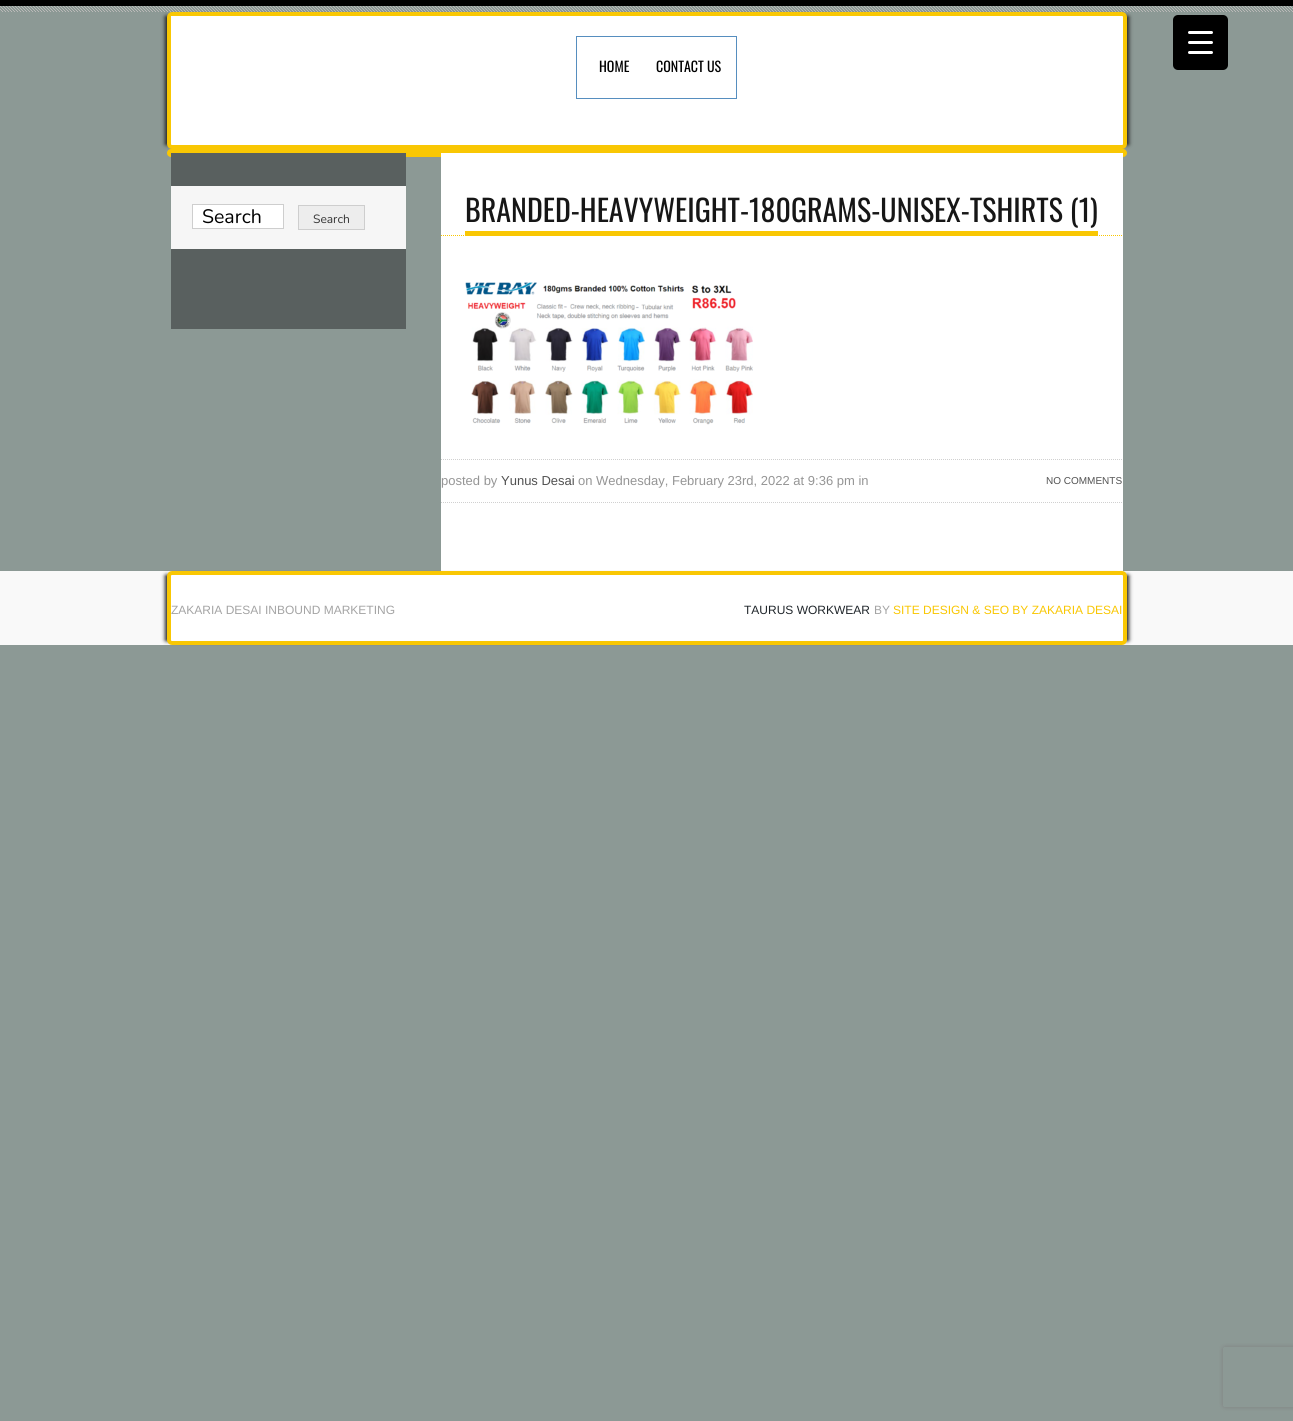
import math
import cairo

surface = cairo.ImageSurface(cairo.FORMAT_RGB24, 1293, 1421)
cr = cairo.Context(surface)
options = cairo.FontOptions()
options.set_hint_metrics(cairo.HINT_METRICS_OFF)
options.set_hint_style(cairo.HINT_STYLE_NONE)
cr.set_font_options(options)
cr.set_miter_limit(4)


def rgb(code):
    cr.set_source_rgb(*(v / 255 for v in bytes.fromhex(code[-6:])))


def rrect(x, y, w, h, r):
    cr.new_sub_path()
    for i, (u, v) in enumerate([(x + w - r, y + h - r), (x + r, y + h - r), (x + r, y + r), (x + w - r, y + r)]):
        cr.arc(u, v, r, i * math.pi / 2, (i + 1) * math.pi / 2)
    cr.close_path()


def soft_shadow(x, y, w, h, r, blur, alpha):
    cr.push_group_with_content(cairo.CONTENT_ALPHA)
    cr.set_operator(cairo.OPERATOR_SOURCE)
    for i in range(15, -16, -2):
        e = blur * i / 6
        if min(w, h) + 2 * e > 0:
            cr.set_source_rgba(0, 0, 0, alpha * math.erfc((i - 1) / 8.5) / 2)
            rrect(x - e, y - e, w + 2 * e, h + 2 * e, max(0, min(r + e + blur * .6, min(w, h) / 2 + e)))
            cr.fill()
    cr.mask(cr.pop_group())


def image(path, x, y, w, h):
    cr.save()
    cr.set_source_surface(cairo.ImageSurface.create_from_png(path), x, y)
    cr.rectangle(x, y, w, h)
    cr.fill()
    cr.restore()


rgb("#8c9995")
cr.paint()
rgb("#000000")
cr.rectangle(0, 0, 1293, 6)
cr.fill()
image("img/1.png", 0, 6, 1293, 6)
rgb("#222222")
soft_shadow(165, 16, 952, 129, 1, 2, 1)
soft_shadow(177, 16, 952, 129, 1, 2, 1)
rgb("#ffffff")
rrect(169, 14, 956, 133, 3)
cr.fill_preserve()
rgb("#f9c703")
cr.set_line_width(4)
cr.stroke()
rgb("#ffffff")
cr.rectangle(171, 16, 1, 1)
cr.fill()
cr.rectangle(576.5, 36.5, 160, 62)
rgb("#568ebf")
cr.set_line_width(1)
cr.stroke()
rgb("#000000")
rrect(1173, 15, 55, 55, 5)
cr.fill()
rgb("#ffffff")
rrect(1188, 41, 25, 3, 1.5)
cr.fill()
rrect(1188, 31, 25, 3, 1.5)
cr.fill()
rrect(1188, 51, 25, 3, 1.5)
cr.fill()
rgb("#f9c703")
rrect(167, 149, 960, 8, 4)
cr.fill()
rgb("#59605f")
cr.rectangle(171, 153, 235, 176)
cr.fill()
rgb("#f6f6f6")
cr.rectangle(171, 186, 235, 63)
cr.fill()
rgb("#ffffff")
cr.rectangle(192.5, 204.5, 91, 24)
cr.fill_preserve()
rgb("#cecece")
cr.stroke()
rgb("#ededed")
cr.rectangle(298.5, 205.5, 66, 24)
cr.fill_preserve()
rgb("#cecece")
cr.stroke()
rgb("#ffffff")
cr.rectangle(441, 153, 682, 418)
cr.fill()
cr.new_path()
cr.move_to(441, 235.5)
cr.line_to(1123, 235.5)
rgb("#f9c703")
cr.set_dash([1, 1])
cr.stroke()
cr.rectangle(465, 231, 633, 5)
cr.fill()
image("img/2.png", 465, 282, 288, 143)
cr.new_path()
cr.move_to(441, 459.5)
cr.line_to(1123, 459.5)
rgb("#d0d0d0")
cr.stroke()
cr.new_path()
cr.move_to(441, 502.5)
cr.line_to(1123, 502.5)
cr.stroke()
rgb("#f9f9f9")
cr.rectangle(0, 571, 1293, 74)
cr.fill()
rgb("#222222")
soft_shadow(165, 575, 952, 66, 1, 2, 1)
soft_shadow(177, 575, 952, 66, 1, 2, 1)
rgb("#ffffff")
rrect(169, 573, 956, 70, 3)
cr.fill_preserve()
rgb("#f9c703")
cr.set_line_width(4)
cr.set_dash([])
cr.stroke()
cr.save()
cr.set_fill_rule(cairo.FILL_RULE_EVEN_ODD)
cr.new_path()
cr.move_to(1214, 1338)
cr.line_to(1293, 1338)
cr.line_to(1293, 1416)
cr.line_to(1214, 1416)
cr.close_path()
cr.move_to(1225, 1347)
cr.line_to(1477, 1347)
cr.curve_to(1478, 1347, 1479, 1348, 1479, 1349)
cr.line_to(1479, 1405)
cr.curve_to(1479, 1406, 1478, 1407, 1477, 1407)
cr.line_to(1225, 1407)
cr.curve_to(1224, 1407, 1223, 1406, 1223, 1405)
cr.line_to(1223, 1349)
cr.curve_to(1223, 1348, 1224, 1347, 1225, 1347)
cr.close_path()
cr.clip()
rgb("#808080")
soft_shadow(1223, 1347, 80, 60, 2, 2.5, 1)
cr.restore()
cr.select_font_face("Oswald")
cr.set_font_size(14)
rgb("#000000")
cr.move_to(599, 72)
cr.show_text("HOME")
cr.move_to(656, 72)
cr.show_text("CONTACT US")
cr.select_font_face("Nunito")
cr.set_font_size(19.5)
cr.move_to(202, 223)
cr.show_text("Search")
cr.set_font_size(12)
rgb("#333333")
cr.move_to(313, 223)
cr.show_text("Search")
cr.select_font_face("Oswald")
cr.set_font_size(30)
rgb("#161616")
cr.move_to(465, 222)
cr.show_text("BRANDED-HEAVYWEIGHT-180GRAMS-UNISEX-TSHIRTS (1)")
cr.select_font_face("Liberation Sans")
cr.set_font_size(13)
rgb("#959595")
cr.move_to(441, 485)
cr.show_text("posted by")
rgb("#515151")
cr.move_to(501, 485)
cr.show_text("Yunus Desai")
rgb("#959595")
cr.move_to(578, 485)
cr.show_text("on Wednesday, February 23rd, 2022 at 9:36 pm in")
cr.set_font_size(10)
rgb("#515151")
cr.move_to(1046, 484)
cr.show_text("NO COMMENTS")
cr.set_font_size(12)
rgb("#a4a4a4")
cr.move_to(171, 614)
cr.show_text("ZAKARIA DESAI INBOUND MARKETING")
rgb("#20262b")
cr.move_to(744, 614)
cr.show_text("TAURUS WORKWEAR")
rgb("#a4a4a4")
cr.move_to(874, 614)
cr.show_text("BY")
rgb("#f9c703")
cr.move_to(893, 614)
cr.show_text("SITE DESIGN & SEO BY ZAKARIA DESAI")
surface.write_to_png("page.png")
